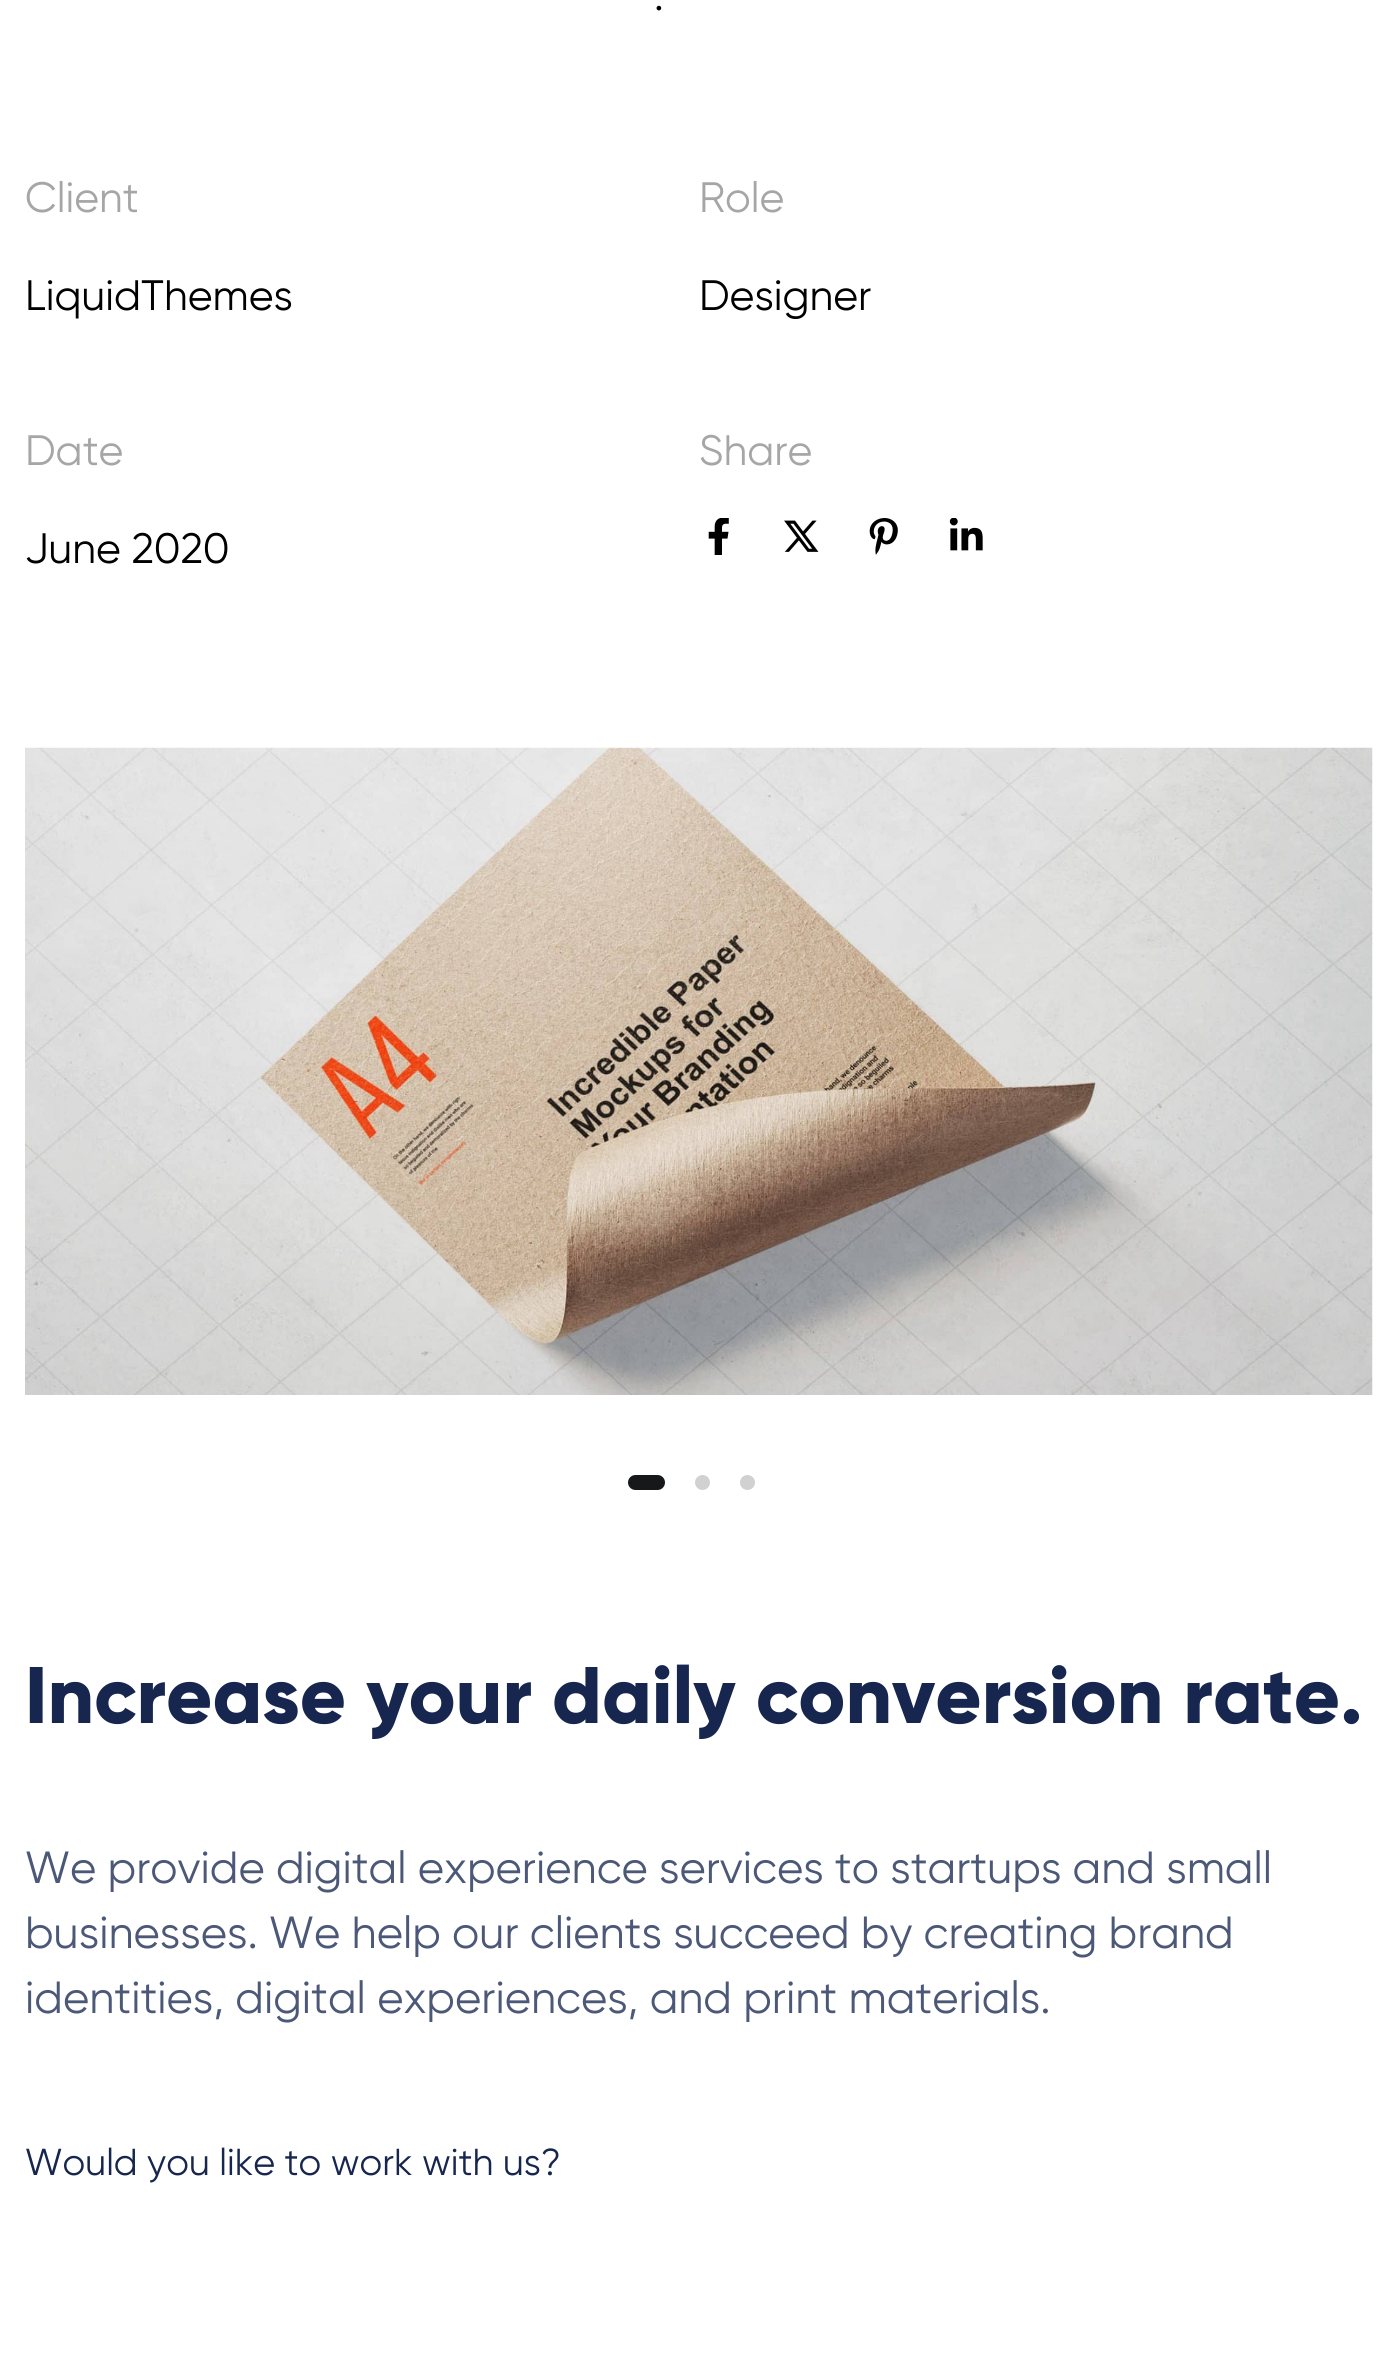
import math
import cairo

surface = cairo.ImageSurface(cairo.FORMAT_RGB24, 1397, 2361)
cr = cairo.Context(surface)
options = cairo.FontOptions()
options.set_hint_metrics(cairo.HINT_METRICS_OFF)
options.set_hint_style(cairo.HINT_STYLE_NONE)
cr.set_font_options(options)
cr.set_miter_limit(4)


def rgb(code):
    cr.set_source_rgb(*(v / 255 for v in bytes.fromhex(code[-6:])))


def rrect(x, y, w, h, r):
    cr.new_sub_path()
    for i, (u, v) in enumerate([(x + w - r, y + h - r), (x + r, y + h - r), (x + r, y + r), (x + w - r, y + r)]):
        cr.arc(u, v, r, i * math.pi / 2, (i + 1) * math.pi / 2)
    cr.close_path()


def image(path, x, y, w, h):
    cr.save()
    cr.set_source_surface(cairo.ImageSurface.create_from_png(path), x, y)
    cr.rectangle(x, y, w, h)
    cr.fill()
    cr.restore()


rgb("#ffffff")
cr.paint()
image("img/1.png", 708, 518, 21, 37)
image("img/2.png", 784, 520, 35, 32)
image("img/3.png", 869, 518, 29, 37)
image("img/4.png", 949, 518, 34, 33)
image("img/5.png", 25, 747, 1348, 648)
rgb("#17181a")
rrect(628, 1475, 37, 15, 7.5)
cr.fill()
rgb("#d1d1d1")
cr.arc(702.5, 1482.5, 7.5, 0, 2 * math.pi)
cr.fill()
cr.arc(747.5, 1482.5, 7.5, 0, 2 * math.pi)
cr.fill()
cr.select_font_face("Gilroy")
cr.set_font_size(42.5)
rgb("#000000")
cr.move_to(654, 10)
cr.show_text(".")
rgb("#a6a6a6")
cr.move_to(25, 212)
cr.show_text("Client")
rgb("#000000")
cr.move_to(25, 310)
cr.show_text("LiquidThemes")
rgb("#a6a6a6")
cr.move_to(699, 212)
cr.show_text("Role")
rgb("#000000")
cr.move_to(699, 310)
cr.show_text("Designer")
rgb("#a6a6a6")
cr.move_to(25, 465)
cr.show_text("Date")
rgb("#000000")
cr.move_to(25, 563)
cr.show_text("June 2020")
rgb("#a6a6a6")
cr.move_to(699, 465)
cr.show_text("Share")
cr.select_font_face("Gilroy ExtraBold")
cr.set_font_size(80)
rgb("#16264e")
cr.move_to(25, 1723)
cr.show_text("Increase your daily conversion rate.")
cr.select_font_face("Gilroy")
cr.set_font_size(45)
rgb("#4c5877")
for x, y, s in [
    (25, 1883, "We provide digital experience services to startups and small"),
    (25, 1948, "businesses. We help our clients succeed by creating brand"),
    (25, 2013, "identities, digital experiences, and print materials."),
]:
    cr.move_to(x, y)
    cr.show_text(s)
cr.set_font_size(37.5)
rgb("#16264e")
cr.move_to(25, 2175)
cr.show_text("Would you like to work with us?")
surface.write_to_png("page.png")
